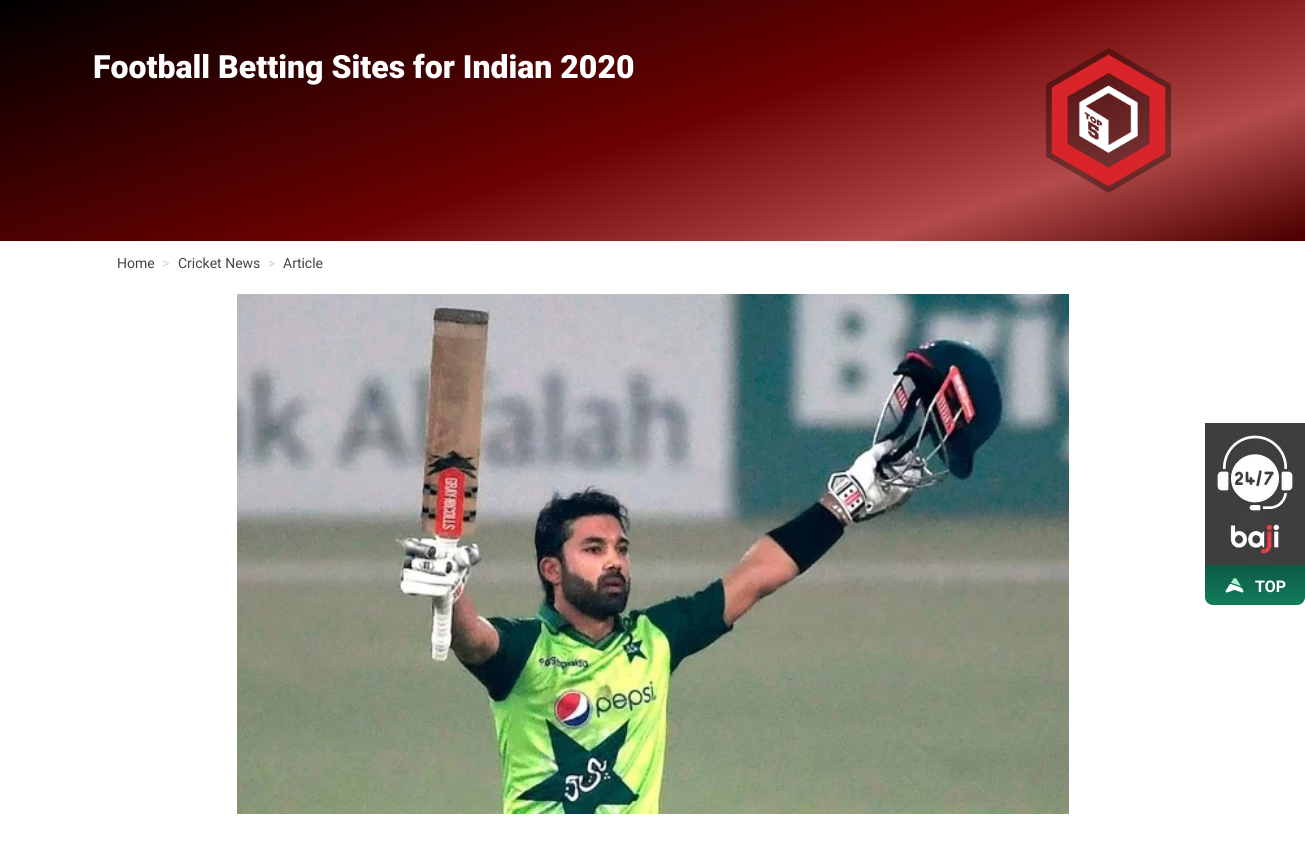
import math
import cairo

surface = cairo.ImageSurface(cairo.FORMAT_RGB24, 1305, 845)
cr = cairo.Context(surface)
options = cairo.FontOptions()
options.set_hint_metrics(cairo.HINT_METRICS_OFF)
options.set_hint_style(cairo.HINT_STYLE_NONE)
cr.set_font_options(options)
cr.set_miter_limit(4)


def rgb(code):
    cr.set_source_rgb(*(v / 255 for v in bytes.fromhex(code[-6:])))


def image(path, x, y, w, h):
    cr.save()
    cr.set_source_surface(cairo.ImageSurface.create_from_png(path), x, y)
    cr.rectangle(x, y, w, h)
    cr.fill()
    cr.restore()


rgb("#ffffff")
cr.paint()
gradient = cairo.LinearGradient(555, -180, 750, 421)
gradient.add_color_stop_rgba(0, 0, 0, 0, 1)
gradient.add_color_stop_rgba(0.52, 0.424, 0.004, 0.004, 1)
gradient.add_color_stop_rgba(0.79, 0.702, 0.294, 0.294, 1)
gradient.add_color_stop_rgba(0.99, 0.306, 0, 0, 1)
cr.set_source(gradient)
cr.rectangle(0, 0, 1305, 241)
cr.fill()
image("img/1.png", 1046, 48, 125, 145)
image("img/2.png", 237, 294, 832, 520)
image("img/3.png", 1205, 423, 100, 142)
image("img/4.png", 1205, 565, 100, 40)
cr.select_font_face("Roboto Black")
cr.set_font_size(32)
rgb("#ffffff")
cr.move_to(93, 78)
cr.show_text("Football Betting Sites for Indian 2020")
cr.select_font_face("Roboto")
cr.set_font_size(14)
rgb("#444444")
cr.move_to(117, 268)
cr.show_text("Home")
rgb("#d1d1d1")
cr.move_to(162, 268)
cr.show_text(">")
rgb("#444444")
cr.move_to(178, 268)
cr.show_text("Cricket News")
rgb("#d1d1d1")
cr.move_to(268, 268)
cr.show_text(">")
rgb("#444444")
cr.move_to(283, 268)
cr.show_text("Article")
surface.write_to_png("page.png")
